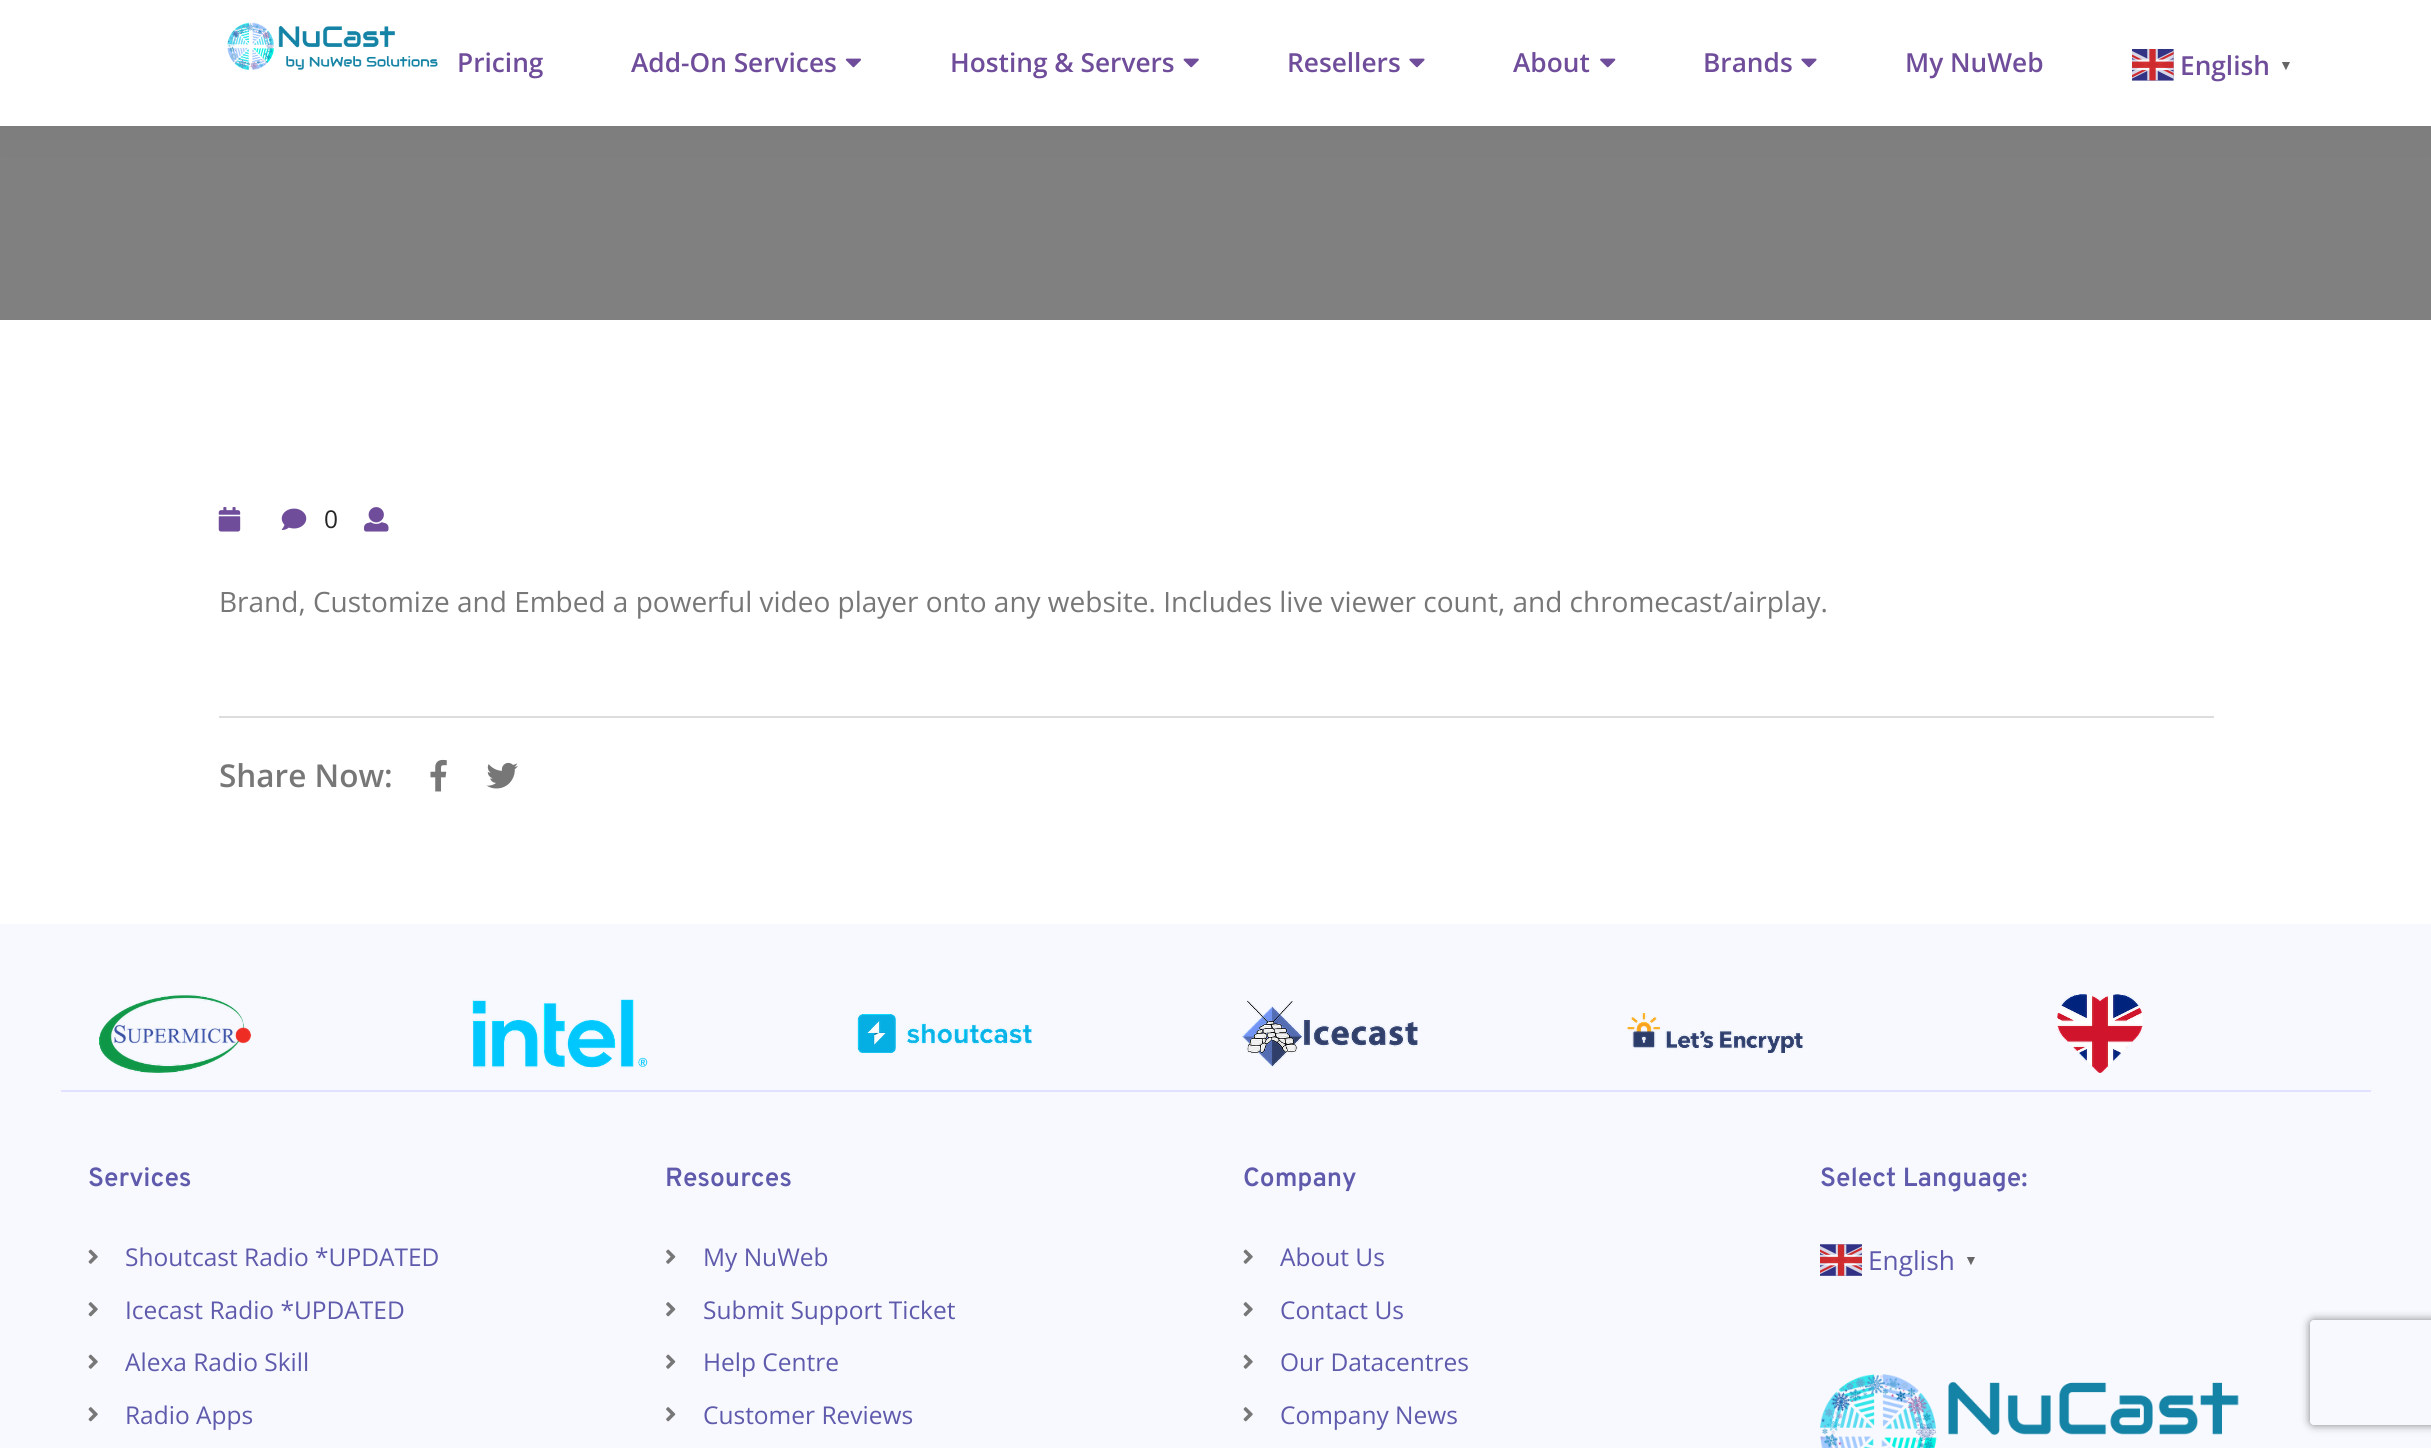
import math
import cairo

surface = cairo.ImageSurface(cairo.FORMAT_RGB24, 2431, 1448)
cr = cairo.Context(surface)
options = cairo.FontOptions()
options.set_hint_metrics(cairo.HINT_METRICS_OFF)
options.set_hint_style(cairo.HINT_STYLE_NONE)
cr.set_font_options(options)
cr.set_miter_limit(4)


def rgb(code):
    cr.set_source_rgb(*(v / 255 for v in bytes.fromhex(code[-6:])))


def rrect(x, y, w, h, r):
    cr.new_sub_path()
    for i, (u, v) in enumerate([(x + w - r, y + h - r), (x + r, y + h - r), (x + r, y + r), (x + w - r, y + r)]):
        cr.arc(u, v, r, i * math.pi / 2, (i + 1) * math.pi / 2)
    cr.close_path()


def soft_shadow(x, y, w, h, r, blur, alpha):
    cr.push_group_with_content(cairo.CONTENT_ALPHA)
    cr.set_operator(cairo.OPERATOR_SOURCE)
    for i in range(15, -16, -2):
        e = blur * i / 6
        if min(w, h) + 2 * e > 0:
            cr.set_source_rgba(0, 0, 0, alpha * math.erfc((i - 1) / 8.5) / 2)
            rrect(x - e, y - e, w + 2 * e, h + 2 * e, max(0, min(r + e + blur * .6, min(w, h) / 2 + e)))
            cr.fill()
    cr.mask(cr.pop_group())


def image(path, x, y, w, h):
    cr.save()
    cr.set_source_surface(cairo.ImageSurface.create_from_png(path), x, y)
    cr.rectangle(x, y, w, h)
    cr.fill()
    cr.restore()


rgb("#ffffff")
cr.paint()
rgb("#808080")
cr.rectangle(0, 126, 2431, 194)
cr.fill()
rgb("#493d5e")
soft_shadow(0, 0, 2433, 126, 0, 17.5, 0.09)
rgb("#ffffff")
cr.rectangle(0, 0, 2431, 126)
cr.fill()
image("img/1.png", 227, 22, 211, 48)
image("img/2.png", 845, 58, 16, 10)
image("img/3.png", 1183, 58, 16, 10)
image("img/4.png", 1409, 58, 16, 10)
image("img/5.png", 1600, 58, 16, 10)
image("img/4.png", 1801, 58, 16, 10)
image("img/6.png", 2132, 49, 42, 32)
image("img/7.png", 218, 507, 23, 25)
image("img/8.png", 281, 508, 26, 22)
image("img/9.png", 364, 507, 25, 25)
rgb("#dddddd")
cr.rectangle(219, 716, 1995, 2)
cr.fill()
image("img/10.png", 430, 759, 17, 33)
image("img/11.png", 486, 762, 32, 27)
rgb("#f7f9ff")
cr.rectangle(0, 924, 2431, 524)
cr.fill()
rgb("#e0e2ff")
cr.rectangle(61, 1090, 2310, 2)
cr.fill()
image("img/12.png", 99, 994, 152, 79)
image("img/13.png", 472, 999, 176, 69)
image("img/14.png", 857, 1014, 175, 39)
image("img/15.png", 1242, 1000, 176, 67)
image("img/16.png", 1627, 1012, 176, 41)
image("img/17.png", 2057, 994, 86, 79)
image("img/18.png", 88, 1249, 10, 15)
image("img/19.png", 88, 1302, 10, 15)
image("img/18.png", 88, 1354, 10, 15)
image("img/19.png", 88, 1407, 10, 15)
image("img/20.png", 666, 1249, 10, 15)
image("img/21.png", 666, 1302, 10, 15)
image("img/20.png", 666, 1354, 10, 15)
image("img/21.png", 666, 1407, 10, 15)
image("img/18.png", 1243, 1249, 10, 15)
image("img/19.png", 1243, 1302, 10, 15)
image("img/18.png", 1243, 1354, 10, 15)
image("img/19.png", 1243, 1407, 10, 15)
image("img/22.png", 1820, 1244, 42, 32)
image("img/23.png", 1820, 1374, 419, 74)
cr.save()
cr.set_fill_rule(cairo.FILL_RULE_EVEN_ODD)
cr.new_path()
cr.move_to(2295, 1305)
cr.line_to(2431, 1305)
cr.line_to(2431, 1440)
cr.line_to(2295, 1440)
cr.close_path()
cr.move_to(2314, 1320)
cr.line_to(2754, 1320)
cr.curve_to(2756, 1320, 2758, 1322, 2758, 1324)
cr.line_to(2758, 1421)
cr.curve_to(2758, 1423, 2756, 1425, 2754, 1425)
cr.line_to(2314, 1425)
cr.curve_to(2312, 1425, 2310, 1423, 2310, 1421)
cr.line_to(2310, 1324)
cr.curve_to(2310, 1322, 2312, 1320, 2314, 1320)
cr.close_path()
cr.clip()
rgb("#808080")
soft_shadow(2310, 1320, 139, 105, 4, 4.5, 1)
cr.restore()
cr.select_font_face("Open Sans SemiBold")
cr.set_font_size(26.25)
rgb("#6f4d9b")
for x, y, s in [
    (457, 72, "Pricing"),
    (631, 72, "Add-On Services"),
    (950, 72, "Hosting & Servers"),
    (1287, 72, "Resellers"),
    (1513, 72, "About"),
    (1703, 72, "Brands"),
    (1905, 72, "My NuWeb"),
    (2180, 75, "English"),
]:
    cr.move_to(x, y)
    cr.show_text(s)
cr.select_font_face("Liberation Serif", cairo.FONT_SLANT_NORMAL, cairo.FONT_WEIGHT_BOLD)
cr.set_font_size(14)
rgb("#666666")
cr.move_to(2279, 70)
cr.show_text("▼")
cr.select_font_face("Open Sans")
cr.set_font_size(24.5)
rgb("#252525")
cr.move_to(324, 528)
cr.show_text("0")
cr.set_font_size(28)
rgb("#777777")
cr.move_to(219, 612)
cr.show_text("Brand, Customize and Embed a powerful video player onto any website. Includes live viewer count, and chromecast/airplay.")
cr.select_font_face("Open Sans SemiBold")
cr.set_font_size(31.5)
cr.move_to(219, 787)
cr.show_text("Share Now:")
cr.select_font_face("Overpass SemiBold")
cr.set_font_size(26.25)
rgb("#5f5aac")
cr.move_to(88, 1186)
cr.show_text("Services")
cr.select_font_face("Open Sans")
cr.set_font_size(24.5)
for x, y, s in [
    (125, 1266, "Shoutcast Radio *UPDATED"),
    (125, 1319, "Icecast Radio *UPDATED"),
    (125, 1371, "Alexa Radio Skill"),
    (125, 1424, "Radio Apps"),
]:
    cr.move_to(x, y)
    cr.show_text(s)
cr.select_font_face("Overpass SemiBold")
cr.set_font_size(26.25)
cr.move_to(665, 1186)
cr.show_text("Resources")
cr.select_font_face("Open Sans")
cr.set_font_size(24.5)
for x, y, s in [
    (703, 1266, "My NuWeb"),
    (703, 1319, "Submit Support Ticket"),
    (703, 1371, "Help Centre"),
    (703, 1424, "Customer Reviews"),
]:
    cr.move_to(x, y)
    cr.show_text(s)
cr.select_font_face("Overpass SemiBold")
cr.set_font_size(26.25)
cr.move_to(1243, 1186)
cr.show_text("Company")
cr.select_font_face("Open Sans")
cr.set_font_size(24.5)
for x, y, s in [
    (1280, 1266, "About Us"),
    (1280, 1319, "Contact Us"),
    (1280, 1371, "Our Datacentres"),
    (1280, 1424, "Company News"),
]:
    cr.move_to(x, y)
    cr.show_text(s)
cr.select_font_face("Overpass SemiBold")
cr.set_font_size(26.25)
cr.move_to(1820, 1186)
cr.show_text("Select Language:")
cr.select_font_face("Open Sans")
cr.move_to(1868, 1270)
cr.show_text("English")
cr.select_font_face("Liberation Serif", cairo.FONT_SLANT_NORMAL, cairo.FONT_WEIGHT_BOLD)
cr.set_font_size(14)
rgb("#666666")
cr.move_to(1964, 1265)
cr.show_text("▼")
surface.write_to_png("page.png")
